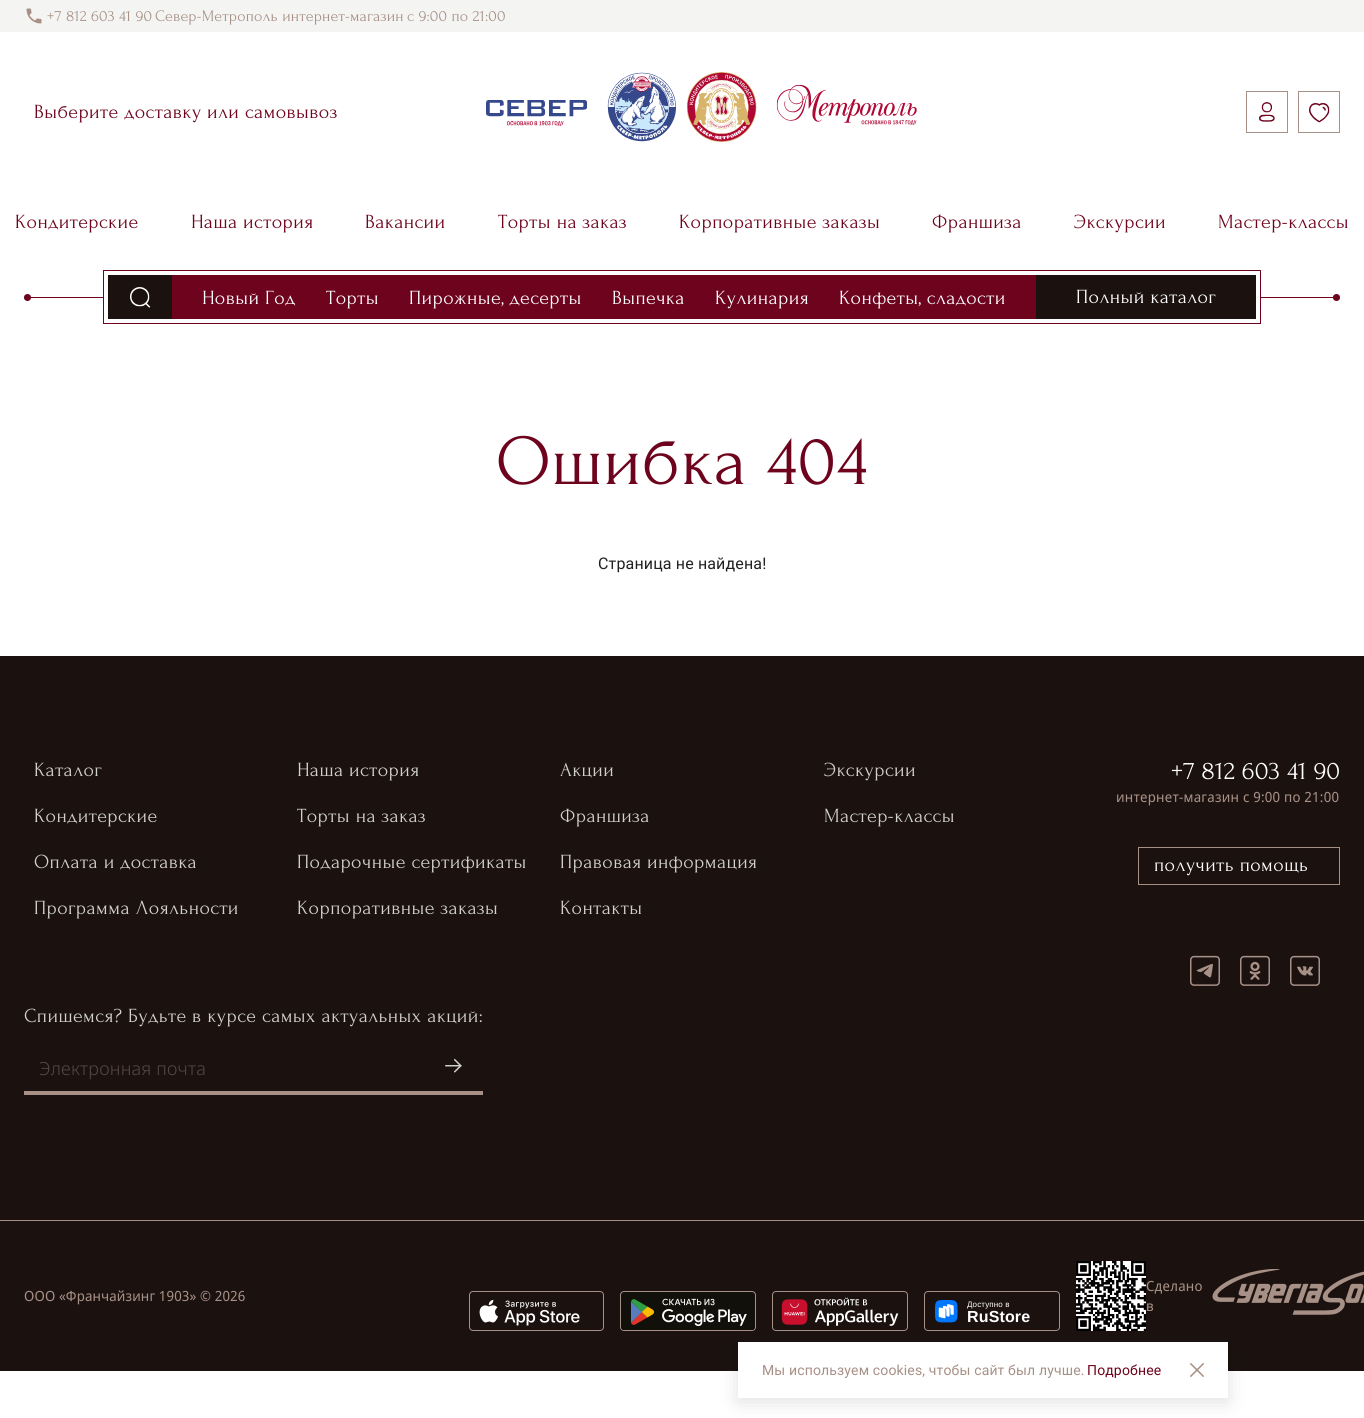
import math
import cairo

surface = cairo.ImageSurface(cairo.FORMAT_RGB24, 1364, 1418)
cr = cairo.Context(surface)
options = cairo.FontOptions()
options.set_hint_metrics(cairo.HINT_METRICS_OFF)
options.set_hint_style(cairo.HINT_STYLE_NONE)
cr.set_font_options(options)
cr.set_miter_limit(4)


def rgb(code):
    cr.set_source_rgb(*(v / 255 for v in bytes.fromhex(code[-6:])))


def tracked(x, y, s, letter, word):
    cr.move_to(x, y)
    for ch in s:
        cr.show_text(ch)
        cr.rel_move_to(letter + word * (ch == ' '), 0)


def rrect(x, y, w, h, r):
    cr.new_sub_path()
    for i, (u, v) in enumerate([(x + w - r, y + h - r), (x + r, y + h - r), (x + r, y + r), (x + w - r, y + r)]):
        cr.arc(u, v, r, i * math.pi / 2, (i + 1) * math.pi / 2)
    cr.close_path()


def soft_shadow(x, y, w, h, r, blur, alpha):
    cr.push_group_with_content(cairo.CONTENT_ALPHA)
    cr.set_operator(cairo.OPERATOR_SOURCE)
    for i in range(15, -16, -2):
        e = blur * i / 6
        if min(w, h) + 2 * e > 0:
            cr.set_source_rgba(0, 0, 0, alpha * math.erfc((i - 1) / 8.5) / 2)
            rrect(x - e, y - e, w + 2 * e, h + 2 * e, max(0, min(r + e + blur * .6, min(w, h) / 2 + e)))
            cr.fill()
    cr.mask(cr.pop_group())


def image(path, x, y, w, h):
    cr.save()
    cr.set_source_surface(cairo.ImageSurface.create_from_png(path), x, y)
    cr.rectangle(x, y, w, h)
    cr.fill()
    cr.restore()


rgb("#ffffff")
cr.paint()
rgb("#f4f4f2")
cr.rectangle(0, 0, 1364, 32)
cr.fill()
image("img/1.png", 26, 8, 16, 16)
image("img/2.png", 486, 72, 431, 70)
cr.rectangle(1246.5, 91.5, 41, 41)
rgb("#a79086")
cr.set_line_width(1)
cr.stroke()
image("img/3.png", 1259, 102, 16, 20)
cr.rectangle(1298.5, 91.5, 41, 41)
cr.stroke()
image("img/4.png", 1309, 103, 21, 20)
rgb("#6d031c")
cr.rectangle(24, 297, 79, 1)
cr.fill()
cr.arc(27.5, 297.5, 3.5, 0, 2 * math.pi)
cr.fill()
cr.rectangle(103.5, 270.5, 1157, 53)
cr.stroke()
rgb("#1b1210")
cr.rectangle(108, 275, 64, 44)
cr.fill()
image("img/5.png", 130, 287, 21, 21)
for x, y, w, h, color in [
    (172, 275, 864, 44, "#6d031c"),
    (1036, 275, 220, 44, "#1b1210"),
    (1261, 297, 79, 1, "#6d031c"),
]:
    rgb(color)
    cr.rectangle(x, y, w, h)
    cr.fill()
cr.arc(1336.5, 297.5, 3.5, 0, 2 * math.pi)
cr.fill()
rgb("#1b1210")
cr.rectangle(0, 656, 1364, 564)
cr.fill()
cr.rectangle(1138.5, 847.5, 201, 37)
rgb("#a79086")
cr.stroke()
image("img/6.png", 1190, 955, 30, 31)
image("img/7.png", 1240, 955, 30, 31)
image("img/8.png", 1290, 955, 30, 31)
cr.rectangle(24, 1091, 459, 4)
cr.fill()
image("img/9.png", 445, 1059, 17, 14)
rgb("#1b1210")
cr.rectangle(0, 1221, 1364, 150)
cr.fill()
rgb("#a79086")
cr.rectangle(0, 1220, 1364, 1)
cr.fill()
rrect(469.5, 1291.5, 134, 39, 3.5)
cr.stroke()
image("img/10.png", 479, 1299, 101, 27)
rrect(620.5, 1291.5, 135, 39, 3.5)
cr.stroke()
image("img/11.png", 621, 1292, 134, 38)
rrect(772.5, 1291.5, 135, 39, 3.5)
cr.stroke()
image("img/12.png", 781, 1297, 118, 29)
rrect(924.5, 1291.5, 135, 39, 3.5)
cr.stroke()
image("img/13.png", 935, 1300, 23, 23)
image("img/14.png", 1076, 1261, 70, 70)
image("img/15.png", 1212, 1269, 152, 46)
rgb("#000000")
soft_shadow(738, 1346, 490, 56, 0, 10, 0.12)
rgb("#ffffff")
cr.rectangle(738, 1342, 490, 56)
cr.fill()
image("img/16.png", 1190, 1363, 14, 14)
cr.select_font_face("Forum")
cr.set_font_size(16)
rgb("#a79086")
for x, y, s in [
    (47, 21, "+7 812 603 41 90"),
    (155, 21, "Север-Метрополь интернет-магазин"),
    (407, 21, "с 9:00 по 21:00"),
]:
    tracked(x, y, s, 0.15, 0)
cr.set_font_size(20)
rgb("#6d031c")
for x, y, s in [
    (34, 118, "Выберите доставку или самовывоз"),
    (15, 228, "Кондитерские"),
    (191, 228, "Наша история"),
    (365, 228, "Вакансии"),
    (498, 228, "Торты на заказ"),
    (679, 228, "Корпоративные заказы"),
    (932, 228, "Франшиза"),
    (1074, 228, "Экскурсии"),
    (1218, 228, "Мастер-классы"),
]:
    tracked(x, y, s, 0.4, 0)
rgb("#ffffff")
for x, y, s in [
    (202, 304, "Новый Год"),
    (326, 304, "Торты"),
    (409, 304, "Пирожные, десерты"),
    (612, 304, "Выпечка"),
    (715, 304, "Кулинария"),
    (839, 304, "Конфеты, сладости"),
    (1076, 303, "Полный каталог"),
]:
    tracked(x, y, s, 0.4, 0)
cr.set_font_size(72)
rgb("#6d031c")
tracked(496, 484, "Ошибка 404", 0.75, 0)
cr.select_font_face("Roboto")
cr.set_font_size(16)
rgb("#212121")
tracked(598, 569, "Страница не найдена!", 0.15, 0)
cr.select_font_face("Forum")
cr.set_font_size(20)
rgb("#d2d2c9")
for x, y, s in [
    (34, 776, "Каталог"),
    (34, 822, "Кондитерские"),
    (34, 868, "Оплата и доставка"),
    (34, 914, "Программа Лояльности"),
    (297, 776, "Наша история"),
    (297, 822, "Торты на заказ"),
    (297, 868, "Подарочные сертификаты"),
    (297, 914, "Корпоративные заказы"),
    (560, 776, "Акции"),
    (560, 822, "Франшиза"),
    (560, 868, "Правовая информация"),
    (560, 914, "Контакты"),
    (824, 776, "Экскурсии"),
    (824, 822, "Мастер-классы"),
]:
    tracked(x, y, s, 0.4, 0)
cr.set_font_size(26)
rgb("#ffffff")
tracked(1171, 779, "+7 812 603 41 90", 0.15, 0)
cr.select_font_face("Noto Sans Display")
cr.set_font_size(14)
rgb("#a79086")
tracked(1116, 802, "интернет-магазин с 9:00 по 21:00", 0.25, 0)
cr.select_font_face("Forum")
cr.set_font_size(20)
rgb("#ffffff")
tracked(1154, 871, "получить помощь", 0.4, 0)
rgb("#d2d2c9")
tracked(24, 1022, "Спишемся? Будьте в курсе самых актуальных акций:", 0.4, 0)
cr.select_font_face("Noto Sans Light")
cr.set_font_size(18)
rgb("#564742")
tracked(39, 1075, "Электронная почта", 0.2, 0)
cr.select_font_face("Noto Sans Display")
cr.set_font_size(14)
rgb("#a79086")
tracked(24, 1301, "ООО «Франчайзинг 1903» © 2026", 0.15, 0)
cr.select_font_face("Liberation Sans")
cr.set_font_size(8)
rgb("#ffffff")
tracked(967, 1307, "Доступно в", 0.15, 0)
cr.select_font_face("Liberation Sans", cairo.FONT_SLANT_NORMAL, cairo.FONT_WEIGHT_BOLD)
cr.set_font_size(16)
tracked(967, 1322, "RuStore", 0.15, 0)
cr.select_font_face("Noto Sans Display")
cr.set_font_size(14)
rgb("#a79086")
tracked(1146, 1291, "Сделано", 0.25, 0)
tracked(1146, 1311, "в", 0.25, 0)
cr.select_font_face("Roboto")
tracked(762, 1375, "Мы используем cookies, чтобы сайт был лучше.", 0.15, 0)
rgb("#6d031c")
tracked(1087, 1375, "Подробнее", 0.15, 0)
surface.write_to_png("page.png")
